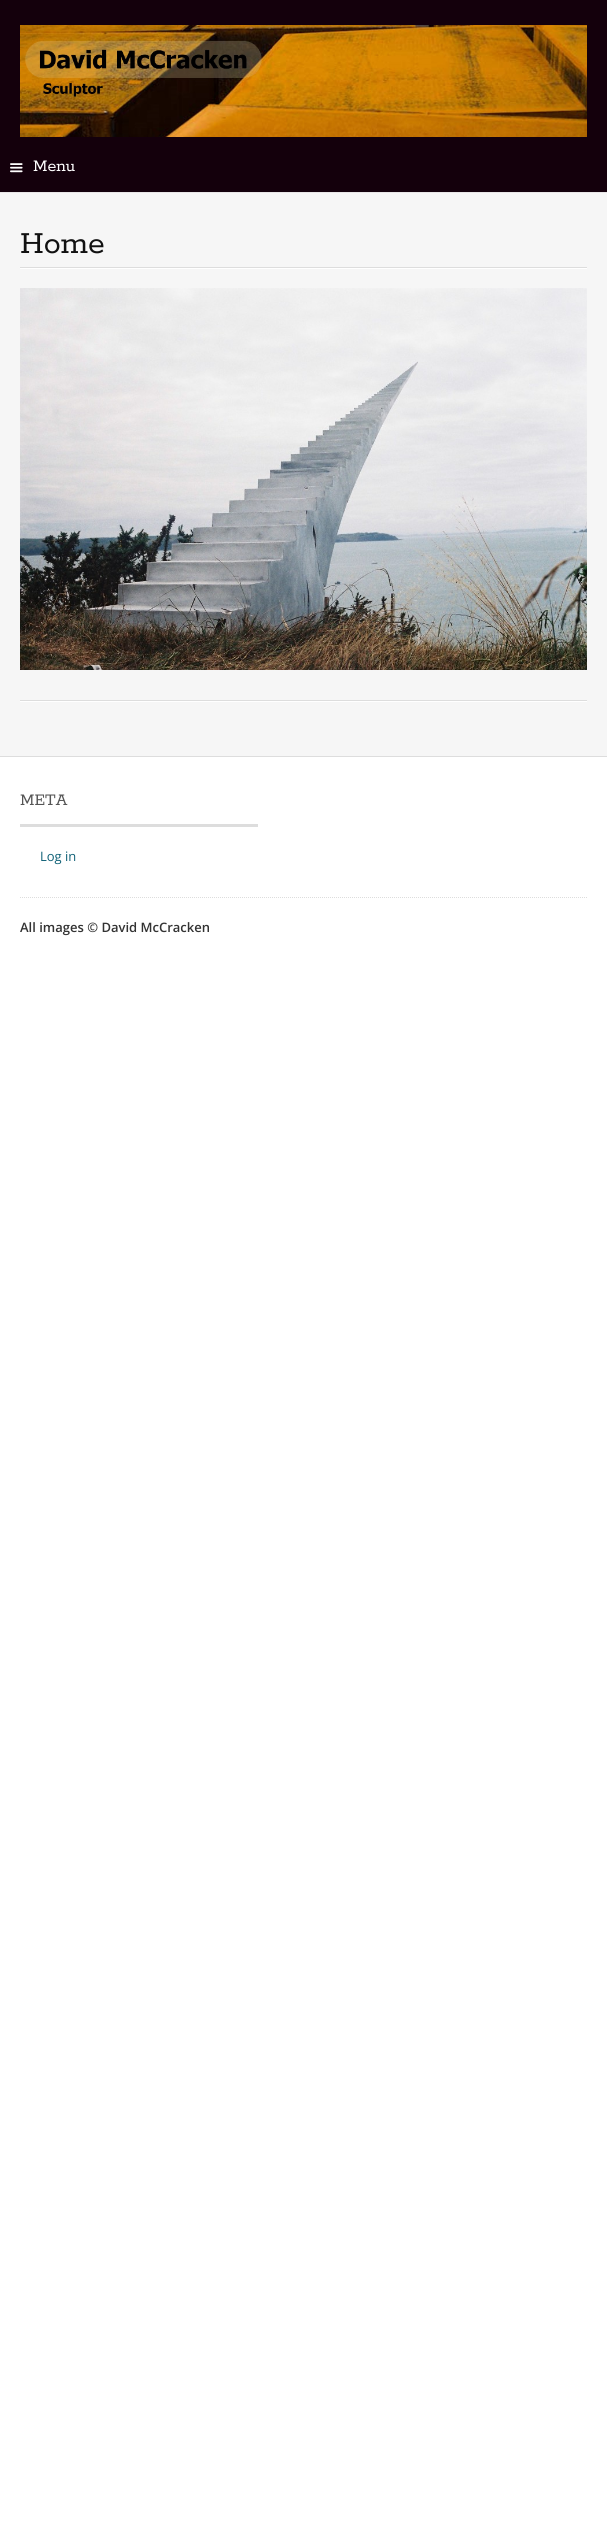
import math
import cairo

surface = cairo.ImageSurface(cairo.FORMAT_RGB24, 607, 2542)
cr = cairo.Context(surface)
options = cairo.FontOptions()
options.set_hint_metrics(cairo.HINT_METRICS_OFF)
options.set_hint_style(cairo.HINT_STYLE_NONE)
cr.set_font_options(options)
cr.set_miter_limit(4)


def rgb(code):
    cr.set_source_rgb(*(v / 255 for v in bytes.fromhex(code[-6:])))


def image(path, x, y, w, h):
    cr.save()
    cr.set_source_surface(cairo.ImageSurface.create_from_png(path), x, y)
    cr.rectangle(x, y, w, h)
    cr.fill()
    cr.restore()


rgb("#ffffff")
cr.paint()
rgb("#14000c")
cr.rectangle(0, 0, 607, 192)
cr.fill()
rgb("#e8e6e7")
cr.rectangle(0, 192, 607, 1)
cr.fill()
image("img/1.png", 20, 25, 567, 112)
image("img/2.png", 10, 163, 13, 10)
for x, y, w, h, color in [
    (0, 193, 607, 563, "#f6f6f6"),
    (20, 268, 567, 1, "#ffffff"),
    (20, 267, 567, 1, "#dddddd"),
]:
    rgb(color)
    cr.rectangle(x, y, w, h)
    cr.fill()
image("img/3.png", 20, 288, 567, 382)
for x, y, w, h, color in [
    (20, 701, 567, 1, "#ffffff"),
    (20, 700, 567, 1, "#dddddd"),
    (0, 756, 607, 1, "#dddddd"),
]:
    rgb(color)
    cr.rectangle(x, y, w, h)
    cr.fill()
cr.new_path()
cr.move_to(20, 897.5)
cr.line_to(587, 897.5)
cr.set_line_width(1)
cr.set_dash([1, 1])
cr.stroke()
cr.rectangle(20, 824, 238, 3)
cr.fill()
cr.select_font_face("Rokkitt")
cr.set_font_size(18)
rgb("#ffffff")
cr.move_to(33, 171)
cr.show_text("Menu")
cr.set_font_size(34)
rgb("#111111")
cr.move_to(20, 253)
cr.show_text("Home")
cr.set_font_size(18)
rgb("#555555")
cr.move_to(20, 805)
cr.show_text("META")
cr.select_font_face("Open Sans")
cr.set_font_size(13)
rgb("#106177")
cr.move_to(40, 861)
cr.show_text("Log in")
cr.select_font_face("Open Sans SemiBold")
rgb("#333333")
cr.move_to(20, 932)
cr.show_text("All images © David McCracken")
surface.write_to_png("page.png")
